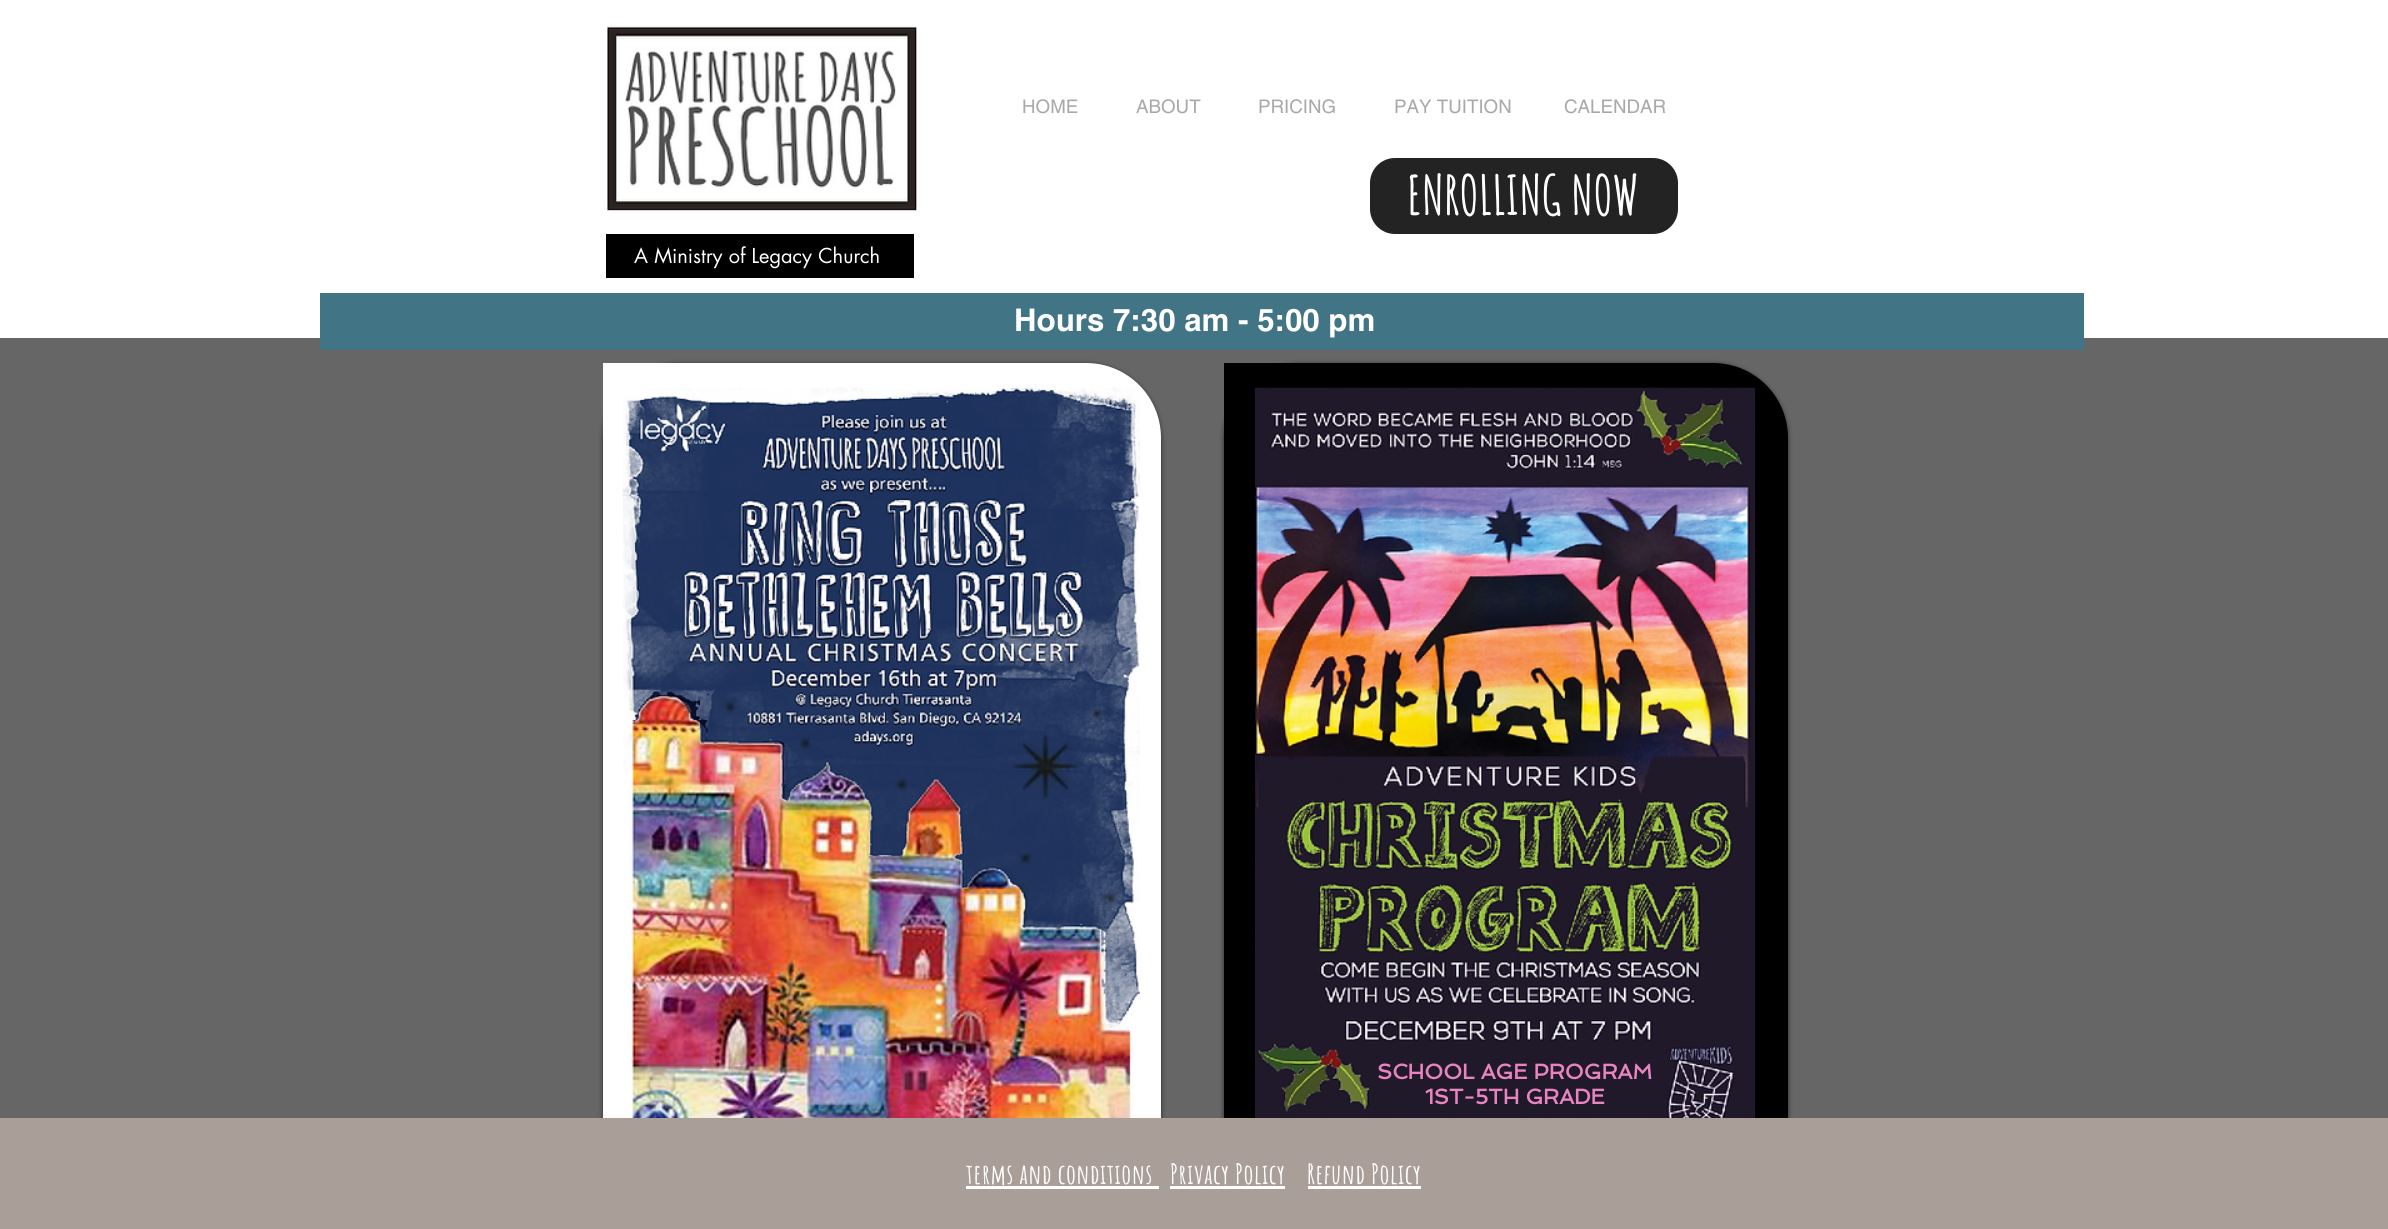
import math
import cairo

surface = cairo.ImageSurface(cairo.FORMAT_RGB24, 2388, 1229)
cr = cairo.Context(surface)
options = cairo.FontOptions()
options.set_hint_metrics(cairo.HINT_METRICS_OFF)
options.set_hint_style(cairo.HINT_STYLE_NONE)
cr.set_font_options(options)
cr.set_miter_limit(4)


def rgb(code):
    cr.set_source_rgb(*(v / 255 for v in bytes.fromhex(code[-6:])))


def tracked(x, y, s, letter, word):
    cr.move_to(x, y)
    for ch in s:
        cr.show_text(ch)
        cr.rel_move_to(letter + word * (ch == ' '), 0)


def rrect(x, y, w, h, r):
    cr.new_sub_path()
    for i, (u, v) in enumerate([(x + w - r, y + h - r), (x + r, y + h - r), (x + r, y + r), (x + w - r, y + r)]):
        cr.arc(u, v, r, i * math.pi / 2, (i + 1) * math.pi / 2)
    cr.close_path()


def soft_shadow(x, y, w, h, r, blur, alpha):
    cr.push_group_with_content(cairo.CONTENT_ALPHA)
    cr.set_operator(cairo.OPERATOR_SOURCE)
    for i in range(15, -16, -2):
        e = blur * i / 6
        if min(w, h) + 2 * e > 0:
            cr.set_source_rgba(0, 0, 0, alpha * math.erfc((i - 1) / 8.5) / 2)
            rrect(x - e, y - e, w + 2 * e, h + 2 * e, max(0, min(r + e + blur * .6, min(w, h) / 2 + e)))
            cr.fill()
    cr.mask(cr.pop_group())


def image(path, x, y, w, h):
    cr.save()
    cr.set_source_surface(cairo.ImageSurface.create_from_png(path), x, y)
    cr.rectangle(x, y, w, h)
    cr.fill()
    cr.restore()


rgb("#666666")
cr.paint()
rgb("#ffffff")
cr.rectangle(0, 0, 2388, 338)
cr.fill()
image("img/1.png", 607, 26, 310, 186)
rgb("#232323")
rrect(1370, 158, 308, 76, 25)
cr.fill()
rgb("#000000")
cr.rectangle(606, 234, 308, 44)
cr.fill()
rgb("#417586")
cr.rectangle(320, 293, 1764, 57)
cr.fill()
rgb("#000000")
soft_shadow(603, 364, 558, 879, 75, 2.5, 0.6)
rgb("#ffffff")
cr.new_path()
cr.move_to(603, 363)
cr.line_to(1086, 363)
cr.curve_to(1127.5, 363, 1161, 396.5, 1161, 438)
cr.line_to(1161, 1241)
cr.line_to(678, 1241)
cr.curve_to(636.5, 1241, 603, 1207.5, 603, 1166)
cr.close_path()
cr.fill()
image("img/2.png", 622, 387, 518, 731)
rgb("#000000")
soft_shadow(1224, 364, 564, 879, 75, 2.5, 0.6)
rgb("#000000")
cr.new_path()
cr.move_to(1224, 363)
cr.line_to(1713, 363)
cr.curve_to(1754.5, 363, 1788, 396.5, 1788, 438)
cr.line_to(1788, 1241)
cr.line_to(1299, 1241)
cr.curve_to(1257.5, 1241, 1224, 1207.5, 1224, 1166)
cr.close_path()
cr.fill()
image("img/3.png", 1255, 387, 500, 731)
for x, y, w, h, color in [
    (0, 1118, 2388, 111, "#a99e98"),
    (966, 1186, 193, 3, "#ffffff"),
    (1170, 1186, 115, 3, "#ffffff"),
    (1308, 1186, 113, 3, "#ffffff"),
]:
    rgb(color)
    cr.rectangle(x, y, w, h)
    cr.fill()
cr.select_font_face("helvetica")
cr.set_font_size(18.75)
rgb("#a9a9a9")
for x, y, s in [
    (1022, 113, "HOME"),
    (1136, 113, "ABOUT"),
    (1258, 113, "PRICING"),
    (1394, 113, "PAY TUITION"),
    (1564, 113, "CALENDAR"),
]:
    cr.move_to(x, y)
    cr.show_text(s)
cr.select_font_face("Amatic SC", cairo.FONT_SLANT_NORMAL, cairo.FONT_WEIGHT_BOLD)
cr.set_font_size(53.75)
rgb("#ffffff")
cr.move_to(1407, 215)
cr.show_text("ENROLLING NOW")
cr.select_font_face("futura")
cr.set_font_size(20)
cr.move_to(634, 263)
cr.show_text("A Ministry of Legacy Church")
cr.select_font_face("helvetica", cairo.FONT_SLANT_NORMAL, cairo.FONT_WEIGHT_BOLD)
cr.set_font_size(31.25)
cr.move_to(1014, 331)
cr.show_text("Hours 7:30 am - 5:00 pm")
cr.select_font_face("Spinnaker", cairo.FONT_SLANT_NORMAL, cairo.FONT_WEIGHT_BOLD)
cr.set_font_size(21.25)
rgb("#e884c0")
cr.move_to(1377, 1079)
cr.show_text("SCHOOL AGE PROGRAM")
cr.move_to(1425, 1104)
cr.show_text("1ST-5TH GRADE")
cr.select_font_face("Amatic SC", cairo.FONT_SLANT_NORMAL, cairo.FONT_WEIGHT_BOLD)
cr.set_font_size(27.5)
rgb("#ffffff")
for x, y, s in [
    (966, 1184, "terms and conditions"),
    (1170, 1184, "Privacy Policy"),
    (1307, 1184, "Refund Policy"),
]:
    tracked(x, y, s, 0.55, 0)
surface.write_to_png("page.png")
